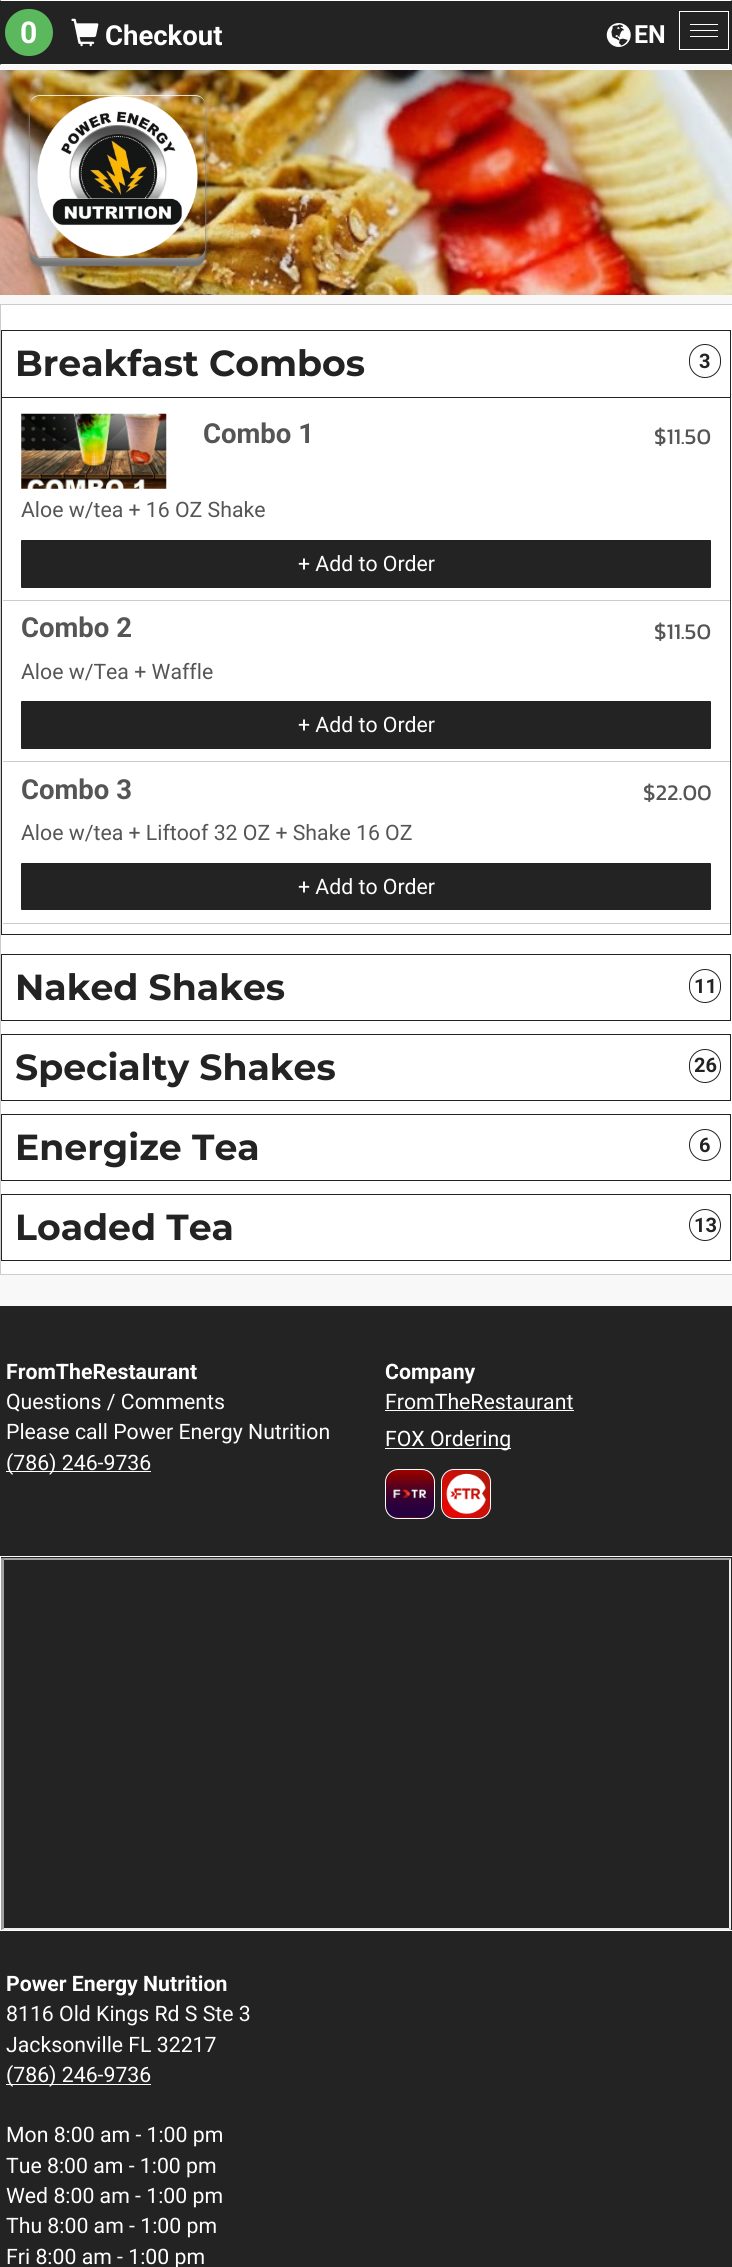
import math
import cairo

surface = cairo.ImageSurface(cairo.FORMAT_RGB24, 732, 2267)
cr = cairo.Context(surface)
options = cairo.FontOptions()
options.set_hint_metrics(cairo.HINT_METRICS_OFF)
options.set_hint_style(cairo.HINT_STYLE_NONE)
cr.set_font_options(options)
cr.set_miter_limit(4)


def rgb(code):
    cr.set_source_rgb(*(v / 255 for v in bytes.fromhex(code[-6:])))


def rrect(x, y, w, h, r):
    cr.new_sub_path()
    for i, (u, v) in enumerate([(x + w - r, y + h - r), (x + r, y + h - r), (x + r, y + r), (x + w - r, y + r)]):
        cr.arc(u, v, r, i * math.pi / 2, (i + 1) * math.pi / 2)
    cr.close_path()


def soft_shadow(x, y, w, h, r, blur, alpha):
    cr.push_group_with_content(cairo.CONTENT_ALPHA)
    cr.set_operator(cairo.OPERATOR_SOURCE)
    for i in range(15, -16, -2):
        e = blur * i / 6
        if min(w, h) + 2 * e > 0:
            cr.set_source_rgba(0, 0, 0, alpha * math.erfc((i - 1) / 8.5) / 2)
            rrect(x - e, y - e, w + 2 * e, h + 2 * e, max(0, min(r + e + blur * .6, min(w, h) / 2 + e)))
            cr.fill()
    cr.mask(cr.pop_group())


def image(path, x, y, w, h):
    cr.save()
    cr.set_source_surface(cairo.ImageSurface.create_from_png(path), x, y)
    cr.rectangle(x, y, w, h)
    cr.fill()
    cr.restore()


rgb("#f8f8f8")
cr.paint()
rgb("#232323")
cr.rectangle(0, 0, 732, 65)
cr.fill()
rgb("#ffffff")
cr.new_path()
cr.move_to(0, 0)
cr.line_to(732, 0)
cr.line_to(731, 1)
cr.line_to(1, 1)
cr.close_path()
cr.fill()
cr.new_path()
cr.move_to(732, 65)
cr.line_to(0, 65)
cr.line_to(1, 64)
cr.line_to(731, 64)
cr.close_path()
cr.fill()
rgb("#5cb85c")
rrect(5, 9, 48, 47, 23.5)
cr.fill()
image("img/1.png", 71, 18, 28, 29)
image("img/2.png", 606, 23, 25, 24)
cr.rectangle(679.5, 11.5, 49, 38)
rgb("#ffffff")
cr.set_line_width(1)
cr.stroke()
for x, y, w, h, color in [
    (690, 24, 28, 1, "#ffffff"),
    (690, 30, 28, 1, "#ffffff"),
    (690, 36, 28, 1, "#ffffff"),
]:
    rgb(color)
    cr.rectangle(x, y, w, h)
    cr.fill()
image("img/3.png", 0, 70, 732, 225)
cr.save()
cr.set_fill_rule(cairo.FILL_RULE_EVEN_ODD)
cr.new_path()
cr.move_to(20, 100)
cr.line_to(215, 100)
cr.line_to(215, 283)
cr.line_to(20, 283)
cr.close_path()
cr.move_to(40, 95)
cr.line_to(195, 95)
cr.curve_to(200.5, 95, 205, 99.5, 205, 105)
cr.line_to(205, 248)
cr.curve_to(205, 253.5, 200.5, 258, 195, 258)
cr.line_to(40, 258)
cr.curve_to(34.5, 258, 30, 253.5, 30, 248)
cr.line_to(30, 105)
cr.curve_to(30, 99.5, 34.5, 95, 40, 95)
cr.close_path()
cr.clip()
rgb("#000000")
soft_shadow(30, 110, 175, 163, 10, 3, 0.2)
cr.restore()
cr.save()
cr.set_fill_rule(cairo.FILL_RULE_EVEN_ODD)
cr.new_path()
cr.move_to(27, 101)
cr.line_to(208, 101)
cr.line_to(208, 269)
cr.line_to(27, 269)
cr.close_path()
cr.move_to(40, 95)
cr.line_to(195, 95)
cr.curve_to(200.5, 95, 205, 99.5, 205, 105)
cr.line_to(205, 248)
cr.curve_to(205, 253.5, 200.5, 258, 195, 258)
cr.line_to(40, 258)
cr.curve_to(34.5, 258, 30, 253.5, 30, 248)
cr.line_to(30, 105)
cr.curve_to(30, 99.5, 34.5, 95, 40, 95)
cr.close_path()
cr.clip()
rgb("#737373")
soft_shadow(30, 104, 175, 162, 10, 0.5, 1)
cr.restore()
cr.save()
cr.set_fill_rule(cairo.FILL_RULE_EVEN_ODD)
cr.new_path()
cr.move_to(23, 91)
cr.line_to(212, 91)
cr.line_to(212, 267)
cr.line_to(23, 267)
cr.close_path()
cr.move_to(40, 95)
cr.line_to(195, 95)
cr.curve_to(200.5, 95, 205, 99.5, 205, 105)
cr.line_to(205, 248)
cr.curve_to(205, 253.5, 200.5, 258, 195, 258)
cr.line_to(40, 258)
cr.curve_to(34.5, 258, 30, 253.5, 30, 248)
cr.line_to(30, 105)
cr.curve_to(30, 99.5, 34.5, 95, 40, 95)
cr.close_path()
cr.clip()
rgb("#999999")
soft_shadow(30, 98, 175, 162, 10, 2, 1)
cr.restore()
image("img/4.png", 37, 96, 161, 161)
cr.set_source_rgba(1, 1, 1, 0.8)
cr.new_path()
cr.move_to(40, 95)
cr.curve_to(34, 95, 30, 99, 30, 105)
cr.curve_to(30, 100, 34, 96, 40, 96)
cr.line_to(195, 96)
cr.curve_to(201, 96, 205, 100, 205, 105)
cr.curve_to(205, 99, 201, 95, 195, 95)
cr.close_path()
cr.fill()
cr.set_source_rgba(0, 0, 0, 0.1)
cr.new_path()
cr.move_to(198, 258)
cr.curve_to(202, 256, 205, 252, 205, 248)
cr.curve_to(205, 252, 201, 256, 195, 256)
cr.line_to(40, 256)
cr.curve_to(34, 256, 30, 252, 30, 248)
cr.curve_to(30, 252, 33, 256, 37, 258)
cr.close_path()
cr.fill()
rgb("#ffffff")
cr.rectangle(0.5, 304.5, 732, 970)
cr.fill_preserve()
rgb("#cccccc")
cr.stroke()
cr.rectangle(1.5, 396.5, 729, 538)
rgb("#232323")
cr.stroke()
rgb("#ffffff")
cr.rectangle(2, 396, 728, 1)
cr.fill()
cr.rectangle(1.5, 330.5, 729, 67)
rgb("#232323")
cr.stroke()
rrect(689.5, 344.5, 31, 33, 15.5)
cr.stroke()
rgb("#cccccc")
cr.rectangle(3, 600, 727, 1)
cr.fill()
image("img/5.png", 21, 413, 146, 76)
rgb("#232323")
rrect(21, 540, 690, 48, 1)
cr.fill()
cr.set_source_rgba(0, 0, 0, 0.07)
cr.new_path()
cr.move_to(22, 541)
cr.line_to(710, 541)
cr.line_to(711, 542)
cr.curve_to(711, 541, 711, 540, 710, 540)
cr.line_to(22, 540)
cr.curve_to(21, 540, 21, 541, 21, 542)
cr.close_path()
cr.fill()
rgb("#cccccc")
cr.rectangle(3, 761, 727, 1)
cr.fill()
rgb("#232323")
rrect(21, 701, 690, 48, 1)
cr.fill()
cr.set_source_rgba(0, 0, 0, 0.07)
cr.new_path()
cr.move_to(22, 702)
cr.line_to(710, 702)
cr.line_to(711, 703)
cr.line_to(711, 704)
cr.curve_to(711, 703, 711, 701, 710, 701)
cr.line_to(22, 701)
cr.line_to(21, 702)
cr.line_to(21, 704)
cr.close_path()
cr.fill()
rgb("#cccccc")
cr.rectangle(3, 923, 727, 1)
cr.fill()
rgb("#232323")
rrect(21, 863, 690, 47, 1)
cr.fill()
cr.set_source_rgba(0, 0, 0, 0.07)
cr.new_path()
cr.move_to(22, 864)
cr.line_to(710, 864)
cr.curve_to(711, 864, 711, 864, 711, 865)
cr.curve_to(711, 864, 711, 863, 710, 863)
cr.line_to(22, 863)
cr.curve_to(21, 863, 21, 864, 21, 865)
cr.close_path()
cr.fill()
cr.rectangle(1.5, 954.5, 729, 66)
rgb("#232323")
cr.stroke()
rrect(689.5, 969.5, 31, 33, 15.5)
cr.stroke()
cr.rectangle(1.5, 1034.5, 729, 66)
cr.stroke()
rrect(689.5, 1049.5, 31, 33, 15.5)
cr.stroke()
cr.rectangle(1.5, 1114.5, 729, 66)
cr.stroke()
cr.arc(705, 1145, 15.5, 0, 2 * math.pi)
cr.stroke()
cr.rectangle(1.5, 1194.5, 729, 66)
cr.stroke()
cr.arc(705, 1225, 15.5, 0, 2 * math.pi)
cr.stroke()
for x, y, w, h, color in [
    (0, 1306, 732, 961, "#232323"),
    (6, 1471, 145, 1, "#ffffff"),
    (385, 1410, 189, 1, "#ffffff"),
    (385, 1448, 126, 1, "#ffffff"),
]:
    rgb(color)
    cr.rectangle(x, y, w, h)
    cr.fill()
image("img/6.png", 385, 1469, 50, 50)
rrect(385.5, 1469.5, 49, 49, 12.5)
cr.stroke()
image("img/7.png", 441, 1468, 51, 51)
rrect(441.5, 1469.5, 49, 49, 12.5)
cr.stroke()
cr.rectangle(0.5, 1556.5, 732, 374)
cr.stroke()
rgb("#9f9f9f")
cr.new_path()
cr.move_to(1, 1558)
cr.line_to(731, 1558)
cr.line_to(729, 1560)
cr.line_to(4, 1560)
cr.close_path()
cr.fill()
rgb("#eeeeee")
cr.new_path()
cr.move_to(731, 1558)
cr.line_to(731, 1930)
cr.line_to(729, 1928)
cr.line_to(729, 1560)
cr.close_path()
cr.fill()
cr.new_path()
cr.move_to(731, 1930)
cr.line_to(1, 1930)
cr.line_to(4, 1928)
cr.line_to(729, 1928)
cr.close_path()
cr.fill()
rgb("#9f9f9f")
cr.new_path()
cr.move_to(1, 1930)
cr.line_to(1, 1558)
cr.line_to(4, 1560)
cr.line_to(4, 1928)
cr.close_path()
cr.fill()
rgb("#ffffff")
cr.rectangle(6, 2084, 145, 1)
cr.fill()
cr.select_font_face("Roboto", cairo.FONT_SLANT_NORMAL, cairo.FONT_WEIGHT_BOLD)
cr.set_font_size(30)
cr.move_to(20, 43)
cr.show_text("0")
cr.set_font_size(27.5)
cr.move_to(105, 45)
cr.show_text("Checkout")
cr.set_font_size(25)
cr.move_to(634, 43)
cr.show_text("EN")
cr.select_font_face("Montserrat", cairo.FONT_SLANT_NORMAL, cairo.FONT_WEIGHT_BOLD)
cr.set_font_size(36.25)
rgb("#232323")
cr.move_to(15, 376)
cr.show_text("Breakfast Combos")
cr.select_font_face("Roboto", cairo.FONT_SLANT_NORMAL, cairo.FONT_WEIGHT_BOLD)
cr.set_font_size(20)
cr.move_to(699, 368)
cr.show_text("3")
cr.set_font_size(27.5)
rgb("#555555")
cr.move_to(203, 443)
cr.show_text("Combo 1")
cr.select_font_face("Kanit")
cr.set_font_size(22.5)
cr.move_to(654, 444)
cr.show_text("$11.50")
cr.select_font_face("Roboto")
cr.set_font_size(21.25)
cr.move_to(21, 517)
cr.show_text("Aloe w/tea + 16 OZ Shake")
rgb("#ffffff")
cr.move_to(298, 571)
cr.show_text("+ Add to Order")
cr.select_font_face("Roboto", cairo.FONT_SLANT_NORMAL, cairo.FONT_WEIGHT_BOLD)
cr.set_font_size(27.5)
rgb("#555555")
cr.move_to(21, 637)
cr.show_text("Combo 2")
cr.select_font_face("Kanit")
cr.set_font_size(22.5)
cr.move_to(654, 639)
cr.show_text("$11.50")
cr.select_font_face("Roboto")
cr.set_font_size(21.25)
cr.move_to(21, 679)
cr.show_text("Aloe w/Tea + Waffle")
rgb("#ffffff")
cr.move_to(298, 732)
cr.show_text("+ Add to Order")
cr.select_font_face("Roboto", cairo.FONT_SLANT_NORMAL, cairo.FONT_WEIGHT_BOLD)
cr.set_font_size(27.5)
rgb("#555555")
cr.move_to(21, 799)
cr.show_text("Combo 3")
cr.select_font_face("Kanit")
cr.set_font_size(22.5)
cr.move_to(643, 800)
cr.show_text("$22.00")
cr.select_font_face("Roboto")
cr.set_font_size(21.25)
cr.move_to(21, 840)
cr.show_text("Aloe w/tea + Liftoof 32 OZ + Shake 16 OZ")
rgb("#ffffff")
cr.move_to(298, 894)
cr.show_text("+ Add to Order")
cr.select_font_face("Montserrat", cairo.FONT_SLANT_NORMAL, cairo.FONT_WEIGHT_BOLD)
cr.set_font_size(36.25)
rgb("#232323")
cr.move_to(15, 1000)
cr.show_text("Naked Shakes")
cr.select_font_face("Roboto", cairo.FONT_SLANT_NORMAL, cairo.FONT_WEIGHT_BOLD)
cr.set_font_size(20)
cr.move_to(694, 993)
cr.show_text("11")
cr.select_font_face("Montserrat", cairo.FONT_SLANT_NORMAL, cairo.FONT_WEIGHT_BOLD)
cr.set_font_size(36.25)
cr.move_to(15, 1080)
cr.show_text("Specialty Shakes")
cr.select_font_face("Roboto", cairo.FONT_SLANT_NORMAL, cairo.FONT_WEIGHT_BOLD)
cr.set_font_size(20)
cr.move_to(694, 1072)
cr.show_text("26")
cr.select_font_face("Montserrat", cairo.FONT_SLANT_NORMAL, cairo.FONT_WEIGHT_BOLD)
cr.set_font_size(36.25)
cr.move_to(15, 1160)
cr.show_text("Energize Tea")
cr.select_font_face("Roboto", cairo.FONT_SLANT_NORMAL, cairo.FONT_WEIGHT_BOLD)
cr.set_font_size(20)
cr.move_to(699, 1152)
cr.show_text("6")
cr.select_font_face("Montserrat", cairo.FONT_SLANT_NORMAL, cairo.FONT_WEIGHT_BOLD)
cr.set_font_size(36.25)
cr.move_to(15, 1240)
cr.show_text("Loaded Tea")
cr.select_font_face("Roboto", cairo.FONT_SLANT_NORMAL, cairo.FONT_WEIGHT_BOLD)
cr.set_font_size(20)
cr.move_to(694, 1232)
cr.show_text("13")
cr.set_font_size(21.25)
rgb("#ffffff")
cr.move_to(6, 1379)
cr.show_text("FromTheRestaurant")
cr.select_font_face("Roboto")
for x, y, s in [
    (6, 1409, "Questions / Comments"),
    (6, 1439, "Please call Power Energy Nutrition"),
    (6, 1470, "(786) 246-9736"),
]:
    cr.move_to(x, y)
    cr.show_text(s)
cr.select_font_face("Roboto", cairo.FONT_SLANT_NORMAL, cairo.FONT_WEIGHT_BOLD)
cr.move_to(385, 1379)
cr.show_text("Company")
cr.select_font_face("Roboto")
cr.move_to(385, 1409)
cr.show_text("FromTheRestaurant")
cr.move_to(385, 1446)
cr.show_text("FOX Ordering")
cr.select_font_face("Roboto", cairo.FONT_SLANT_NORMAL, cairo.FONT_WEIGHT_BOLD)
cr.move_to(6, 1991)
cr.show_text("Power Energy Nutrition")
cr.select_font_face("Roboto")
for x, y, s in [
    (6, 2021, "8116 Old Kings Rd S Ste 3"),
    (6, 2052, "Jacksonville FL 32217"),
    (6, 2082, "(786) 246-9736"),
    (6, 2142, "Mon 8:00 am - 1:00 pm"),
    (6, 2173, "Tue 8:00 am - 1:00 pm"),
    (6, 2203, "Wed 8:00 am - 1:00 pm"),
    (6, 2233, "Thu 8:00 am - 1:00 pm"),
    (6, 2264, "Fri 8:00 am - 1:00 pm"),
]:
    cr.move_to(x, y)
    cr.show_text(s)
surface.write_to_png("page.png")
